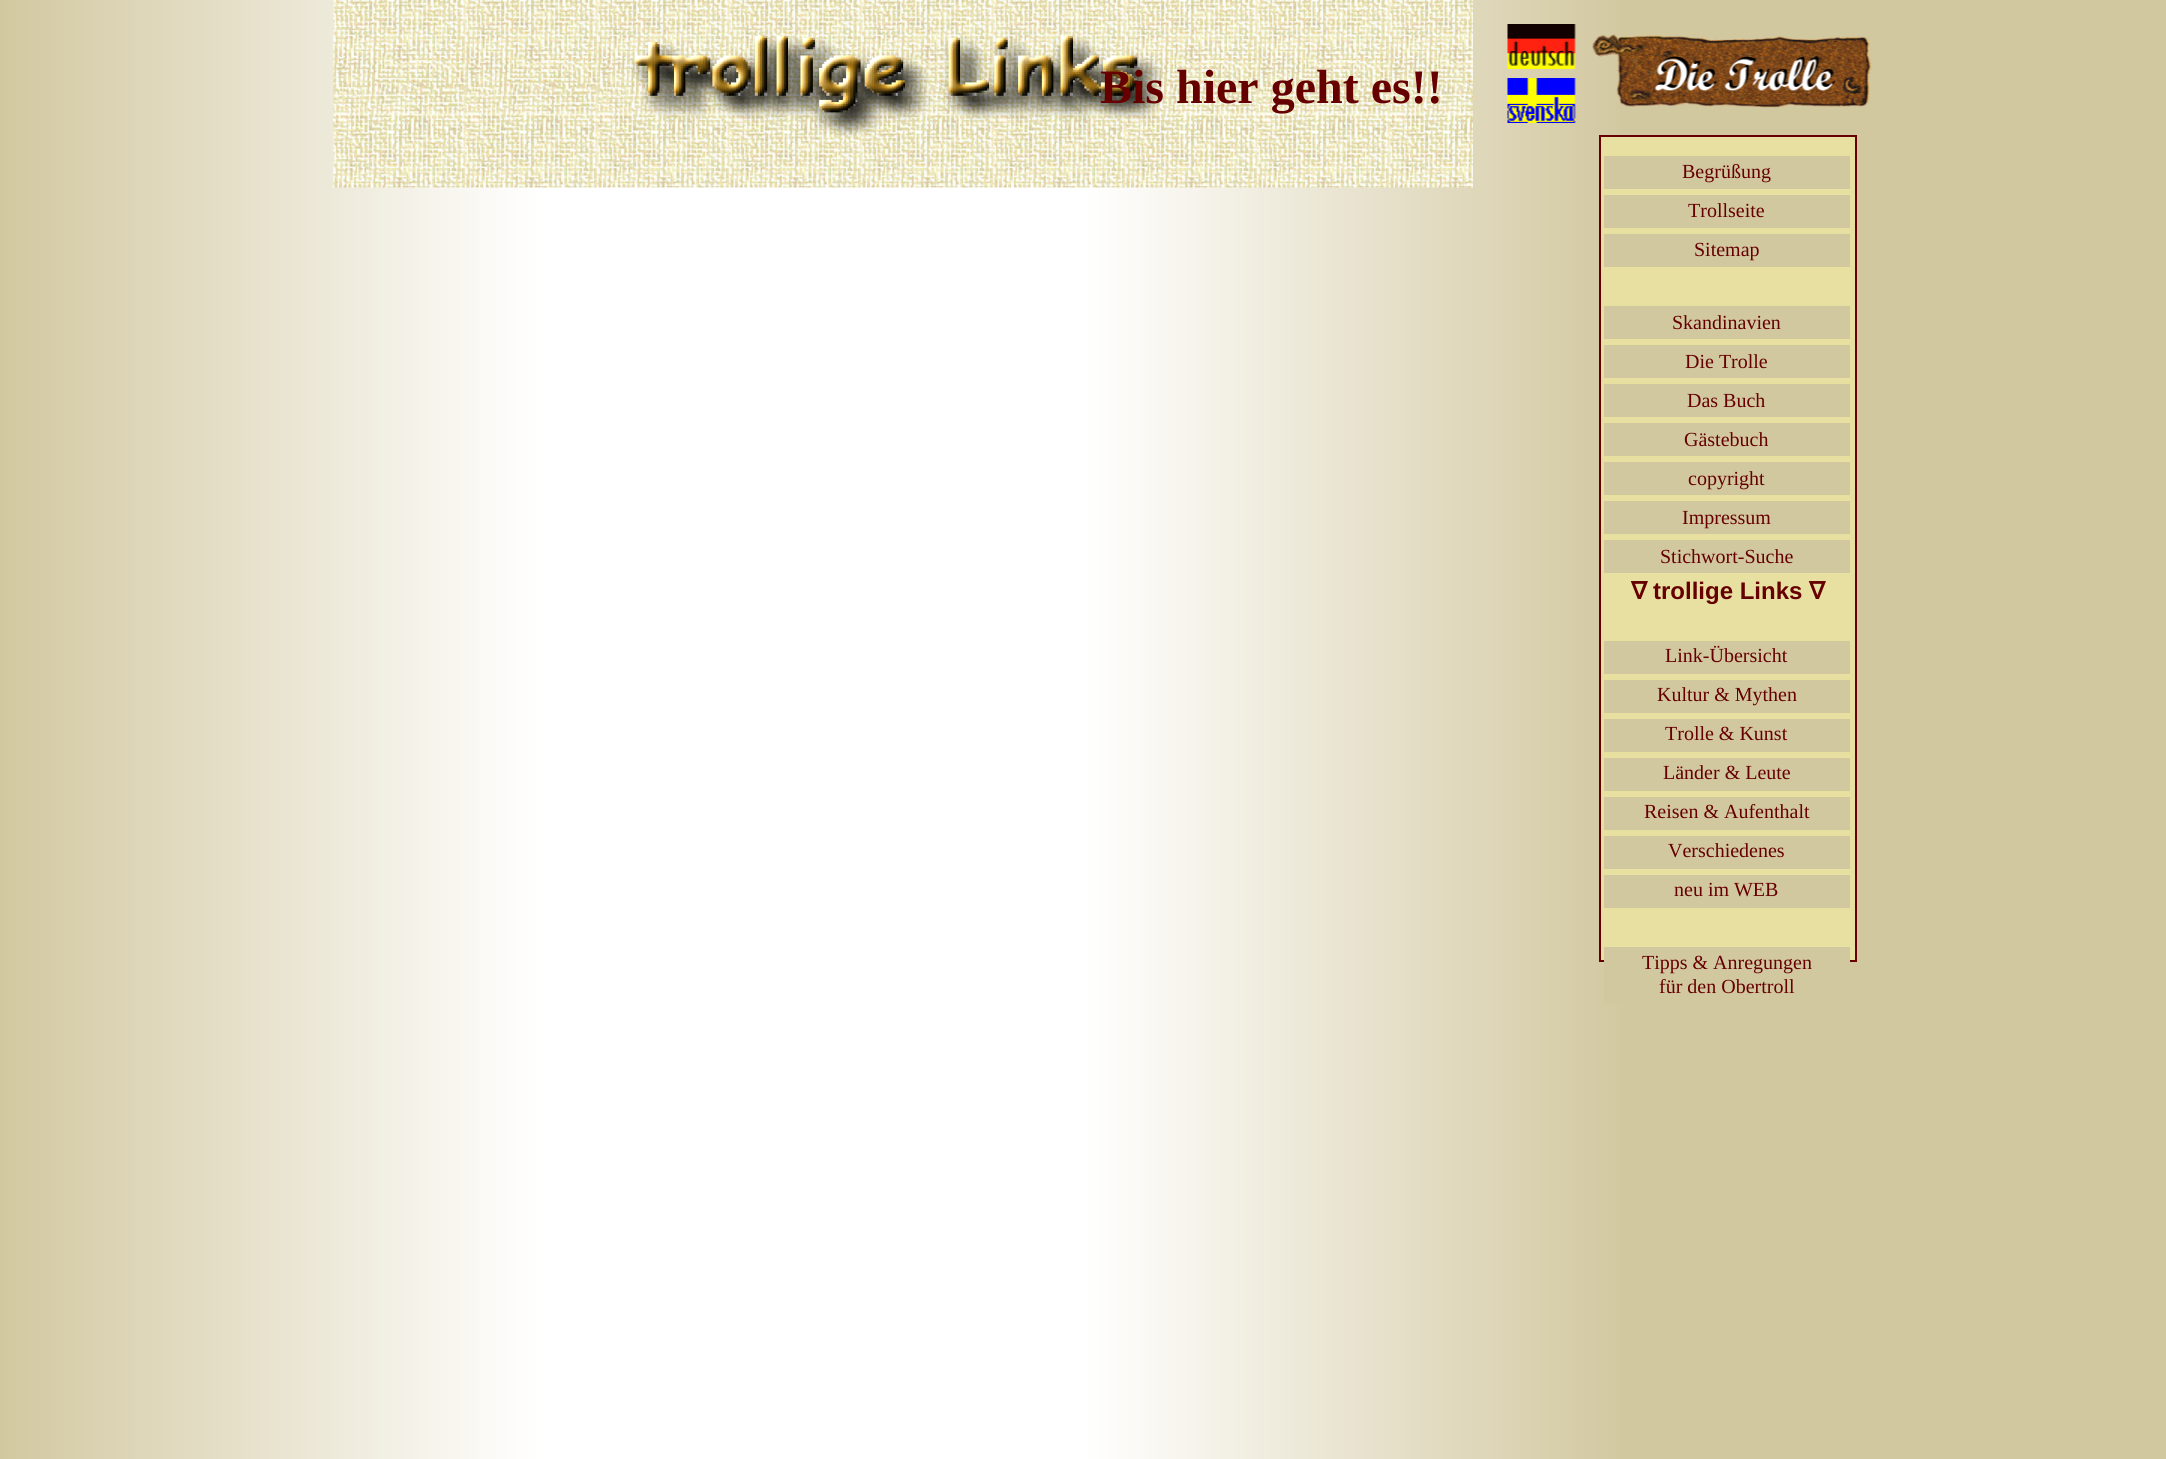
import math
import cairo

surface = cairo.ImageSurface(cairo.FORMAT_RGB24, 2166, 1459)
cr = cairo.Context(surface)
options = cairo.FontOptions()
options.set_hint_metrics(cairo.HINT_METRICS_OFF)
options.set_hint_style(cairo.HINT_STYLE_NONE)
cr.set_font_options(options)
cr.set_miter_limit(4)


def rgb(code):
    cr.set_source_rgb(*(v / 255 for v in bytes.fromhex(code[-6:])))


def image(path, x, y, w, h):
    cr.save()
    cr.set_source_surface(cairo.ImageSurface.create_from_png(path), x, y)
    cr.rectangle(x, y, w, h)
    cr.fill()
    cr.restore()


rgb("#ffffff")
cr.paint()
gradient = cairo.LinearGradient(0, 730, 2166, 730)
gradient.add_color_stop_rgba(0, 0.824, 0.784, 0.627, 1)
gradient.add_color_stop_rgba(0.25, 1, 1, 1, 1)
gradient.add_color_stop_rgba(0.5, 1, 1, 1, 1)
gradient.add_color_stop_rgba(0.75, 0.824, 0.784, 0.627, 1)
gradient.add_color_stop_rgba(1, 0.824, 0.784, 0.627, 1)
cr.set_source(gradient)
cr.rectangle(0, 0, 2166, 1459)
cr.fill()
image("img/1.png", 333, 0, 1140, 188)
image("img/2.png", 631, 35, 533, 102)
image("img/3.png", 1507, 24, 69, 45)
image("img/4.png", 1592, 34, 280, 74)
image("img/5.png", 1507, 78, 69, 45)
rgb("#e8e0a0")
cr.rectangle(1600, 136, 256, 825)
cr.fill_preserve()
rgb("#660000")
cr.stroke()
for x, y, w, h, color in [
    (1604, 156, 246, 33, "#d2c8a0"),
    (1604, 195, 246, 33, "#d2c8a0"),
    (1604, 234, 246, 33, "#d2c8a0"),
    (1604, 306, 246, 33, "#d2c8a0"),
    (1604, 345, 246, 33, "#d2c8a0"),
    (1604, 384, 246, 33, "#d2c8a0"),
    (1604, 423, 246, 33, "#d2c8a0"),
    (1604, 462, 246, 33, "#d2c8a0"),
    (1604, 501, 246, 33, "#d2c8a0"),
    (1604, 540, 246, 33, "#d2c8a0"),
    (1604, 641, 246, 33, "#d2c8a0"),
    (1604, 680, 246, 33, "#d2c8a0"),
    (1604, 719, 246, 33, "#d2c8a0"),
    (1604, 758, 246, 33, "#d2c8a0"),
    (1604, 797, 246, 33, "#d2c8a0"),
    (1604, 836, 246, 33, "#d2c8a0"),
    (1604, 875, 246, 33, "#d2c8a0"),
    (1604, 947, 246, 57, "#d2c8a0"),
]:
    rgb(color)
    cr.rectangle(x, y, w, h)
    cr.fill()
cr.select_font_face("Liberation Serif", cairo.FONT_SLANT_NORMAL, cairo.FONT_WEIGHT_BOLD)
cr.set_font_size(48)
rgb("#660000")
cr.move_to(1100, 103)
cr.show_text("Bis hier geht es!!")
cr.select_font_face("Liberation Serif")
cr.set_font_size(20)
for x, y, s in [
    (1682, 178, "Begrüßung"),
    (1688, 217, "Trollseite"),
    (1694, 256, "Sitemap"),
    (1672, 329, "Skandinavien"),
    (1685, 368, "Die Trolle"),
    (1687, 407, "Das Buch"),
    (1684, 446, "Gästebuch"),
    (1688, 485, "copyright"),
    (1682, 524, "Impressum"),
    (1660, 563, "Stichwort-Suche"),
]:
    cr.move_to(x, y)
    cr.show_text(s)
cr.select_font_face("DejaVu Sans", cairo.FONT_SLANT_NORMAL, cairo.FONT_WEIGHT_BOLD)
cr.set_font_size(24)
cr.move_to(1631, 599)
cr.show_text("∇")
cr.select_font_face("Liberation Sans", cairo.FONT_SLANT_NORMAL, cairo.FONT_WEIGHT_BOLD)
cr.move_to(1653, 599)
cr.show_text("trollige Links")
cr.select_font_face("DejaVu Sans", cairo.FONT_SLANT_NORMAL, cairo.FONT_WEIGHT_BOLD)
cr.move_to(1809, 599)
cr.show_text("∇")
cr.select_font_face("Liberation Serif")
cr.set_font_size(20)
for x, y, s in [
    (1665, 662, "Link-Übersicht"),
    (1657, 701, "Kultur & Mythen"),
    (1665, 740, "Trolle & Kunst"),
    (1663, 779, "Länder & Leute"),
    (1644, 818, "Reisen & Aufenthalt"),
    (1668, 857, "Verschiedenes"),
    (1674, 896, "neu im WEB"),
    (1642, 969, "Tipps & Anregungen"),
    (1659, 993, "für den Obertroll"),
]:
    cr.move_to(x, y)
    cr.show_text(s)
surface.write_to_png("page.png")
